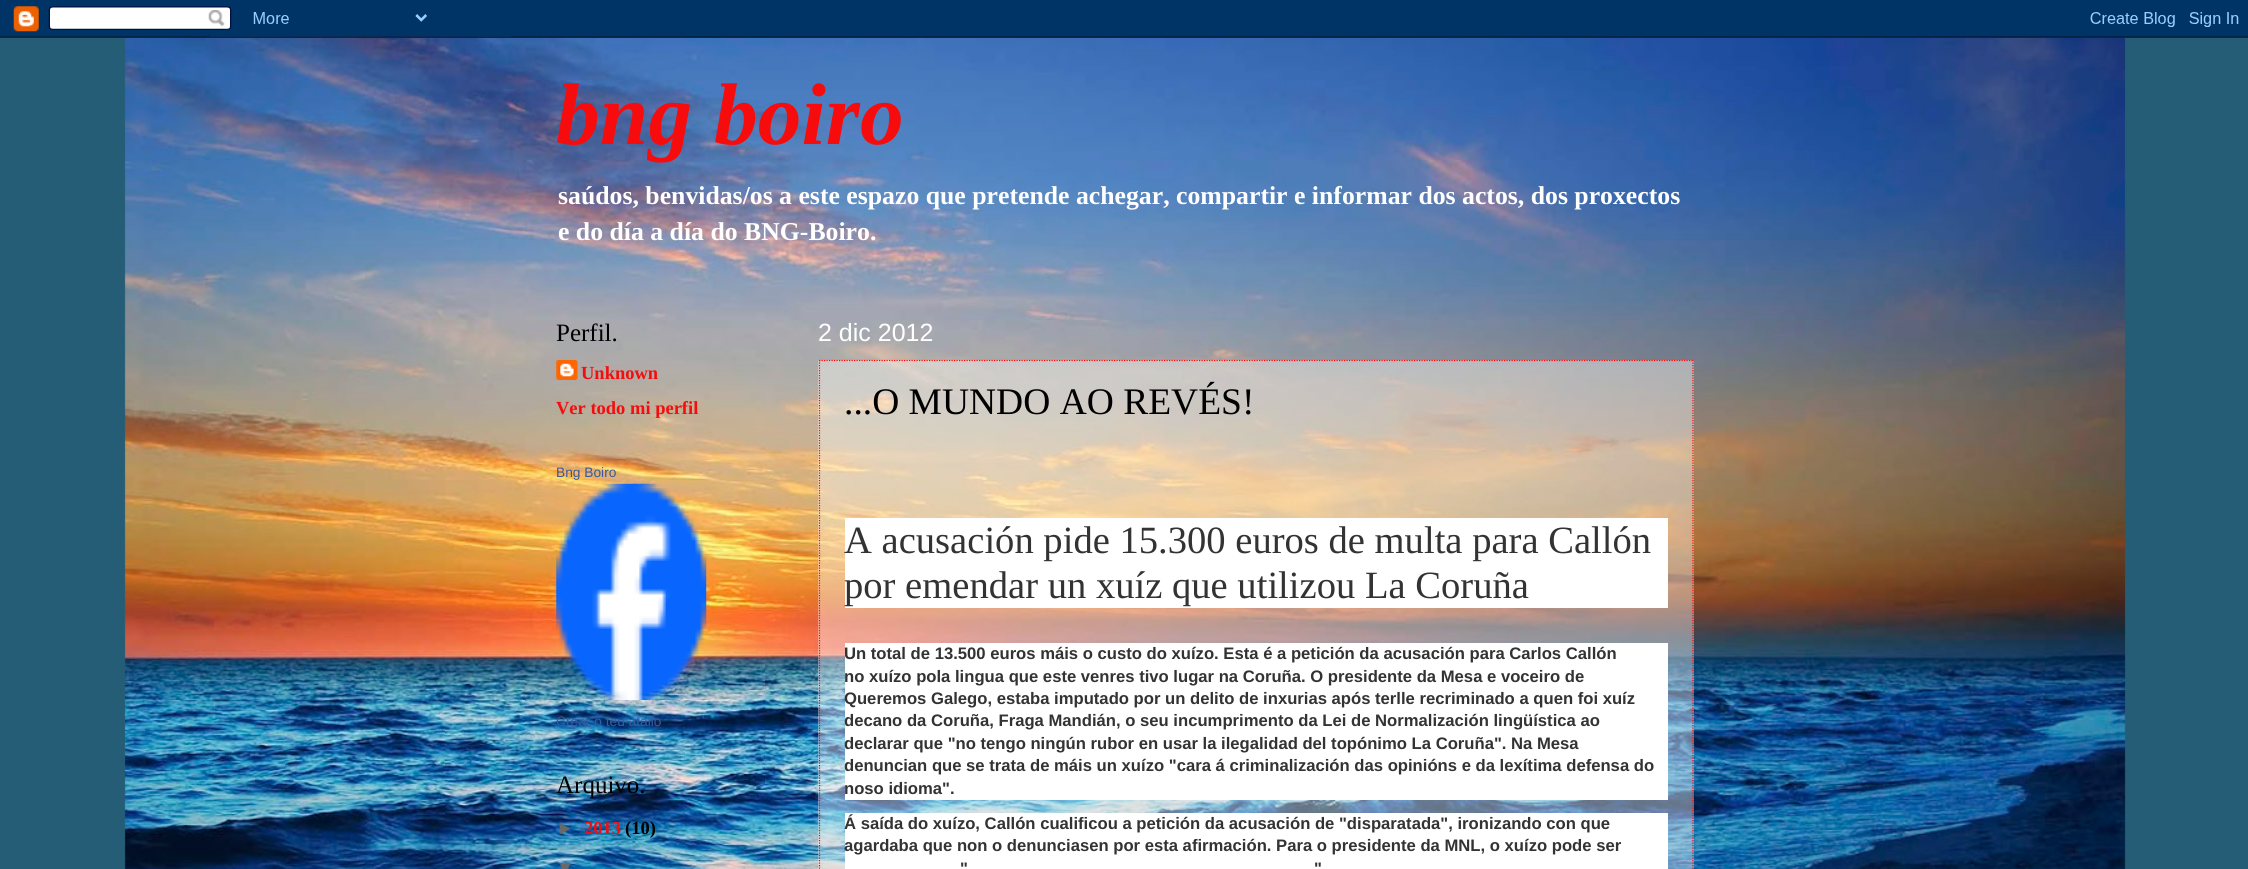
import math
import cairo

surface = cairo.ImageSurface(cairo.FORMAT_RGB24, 2248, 869)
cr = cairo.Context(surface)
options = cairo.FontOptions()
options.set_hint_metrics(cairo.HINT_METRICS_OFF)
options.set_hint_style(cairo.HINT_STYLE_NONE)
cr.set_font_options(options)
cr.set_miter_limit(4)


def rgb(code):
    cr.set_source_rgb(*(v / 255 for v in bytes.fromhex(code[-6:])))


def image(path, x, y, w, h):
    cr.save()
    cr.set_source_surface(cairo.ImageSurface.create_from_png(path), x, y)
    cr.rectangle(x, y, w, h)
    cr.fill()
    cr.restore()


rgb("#255d76")
cr.paint()
image("img/1.png", 124, 36, 2002, 833)
image("img/2.png", 0, 0, 2248, 38)
image("img/3.png", 556, 360, 22, 20)
image("img/4.png", 556, 483, 151, 217)
cr.set_source_rgba(1, 1, 1, 0.4)
cr.rectangle(818, 360, 876, 509)
cr.fill()
cr.new_path()
cr.move_to(819, 360.5)
cr.line_to(1694, 360.5)
rgb("#fa0606")
cr.set_line_width(1.2)
cr.set_dash([1.25, 1.25])
cr.stroke()
cr.new_path()
cr.move_to(1693, 360)
cr.line_to(1693, 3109)
cr.stroke()
cr.new_path()
cr.move_to(819.5, 360)
cr.line_to(819.5, 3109)
cr.stroke()
for x, y, w, h, color in [
    (845, 518, 823, 90, "#ffffff"),
    (845, 643, 823, 157, "#ffffff"),
    (845, 813, 823, 56, "#ffffff"),
]:
    rgb(color)
    cr.rectangle(x, y, w, h)
    cr.fill()
cr.select_font_face("Liberation Serif", cairo.FONT_SLANT_ITALIC, cairo.FONT_WEIGHT_BOLD)
cr.set_font_size(87.5)
rgb("#f60c0c")
cr.move_to(556, 144)
cr.show_text("bng boiro")
cr.select_font_face("Liberation Serif", cairo.FONT_SLANT_NORMAL, cairo.FONT_WEIGHT_BOLD)
cr.set_font_size(25.75)
rgb("#ffffff")
cr.move_to(558, 204)
cr.show_text("saúdos, benvidas/os a este espazo que pretende achegar, compartir e informar dos actos, dos proxectos")
cr.move_to(558, 240)
cr.show_text("e do día a día do BNG-Boiro.")
cr.select_font_face("Liberation Serif")
cr.set_font_size(25)
rgb("#000000")
cr.move_to(556, 341)
cr.show_text("Perfil.")
cr.select_font_face("Liberation Serif", cairo.FONT_SLANT_NORMAL, cairo.FONT_WEIGHT_BOLD)
cr.set_font_size(18.5)
rgb("#f60c0c")
cr.move_to(581, 379)
cr.show_text("Unknown")
cr.move_to(556, 414)
cr.show_text("Ver todo mi perfil")
cr.select_font_face("Liberation Sans")
cr.set_font_size(13.75)
rgb("#3b5998")
cr.move_to(556, 477)
cr.show_text("Bng Boiro")
cr.move_to(556, 726)
cr.show_text("Crear o teu atallo")
cr.select_font_face("Liberation Serif")
cr.set_font_size(25)
rgb("#000000")
cr.move_to(556, 793)
cr.show_text("Arquivo.")
cr.select_font_face("Liberation Sans", cairo.FONT_SLANT_NORMAL, cairo.FONT_WEIGHT_BOLD)
cr.set_font_size(18.5)
rgb("#696969")
cr.move_to(556, 834)
cr.show_text("►")
cr.select_font_face("Liberation Serif", cairo.FONT_SLANT_NORMAL, cairo.FONT_WEIGHT_BOLD)
rgb("#f60c0c")
cr.move_to(584, 834)
cr.show_text("2013")
rgb("#000000")
cr.move_to(625, 834)
cr.show_text("(10)")
cr.select_font_face("Liberation Sans", cairo.FONT_SLANT_NORMAL, cairo.FONT_WEIGHT_BOLD)
rgb("#696969")
cr.move_to(556, 874)
cr.show_text("▼")
cr.select_font_face("Liberation Sans")
cr.set_font_size(25)
rgb("#ffffff")
cr.move_to(818, 341)
cr.show_text("2 dic 2012")
cr.select_font_face("Liberation Serif")
cr.set_font_size(37.5)
rgb("#000000")
cr.move_to(844, 414)
cr.show_text("...O MUNDO AO REVÉS!")
cr.set_font_size(38.6)
rgb("#333333")
cr.move_to(844, 553)
cr.show_text("A acusación pide 15.300 euros de multa para Callón")
cr.move_to(844, 598)
cr.show_text("por emendar un xuíz que utilizou La Coruña")
cr.select_font_face("Liberation Sans", cairo.FONT_SLANT_NORMAL, cairo.FONT_WEIGHT_BOLD)
cr.set_font_size(16.65)
for x, y, s in [
    (844, 659, "Un total de 13.500 euros máis o custo do xuízo. Esta é a petición da acusación para Carlos Callón"),
    (844, 682, "no xuízo pola lingua que este venres tivo lugar na Coruña. O presidente da Mesa e voceiro de"),
    (844, 704, "Queremos Galego, estaba imputado por un delito de inxurias após terlle recriminado a quen foi xuíz"),
    (844, 726, "decano da Coruña, Fraga Mandián, o seu incumprimento da Lei de Normalización lingüística ao"),
    (844, 749, "declarar que \"no tengo ningún rubor en usar la ilegalidad del topónimo La Coruña\". Na Mesa"),
    (844, 771, "denuncian que se trata de máis un xuízo \"cara á criminalización das opinións e da lexítima defensa do"),
    (844, 794, "noso idioma\"."),
    (844, 829, "Á saída do xuízo, Callón cualificou a petición da acusación de \"disparatada\", ironizando con que"),
    (844, 851, "agardaba que non o denunciasen por esta afirmación. Para o presidente da MNL, o xuízo pode ser"),
    (960, 874, "\""),
    (1314, 874, "\""),
]:
    cr.move_to(x, y)
    cr.show_text(s)
surface.write_to_png("page.png")
